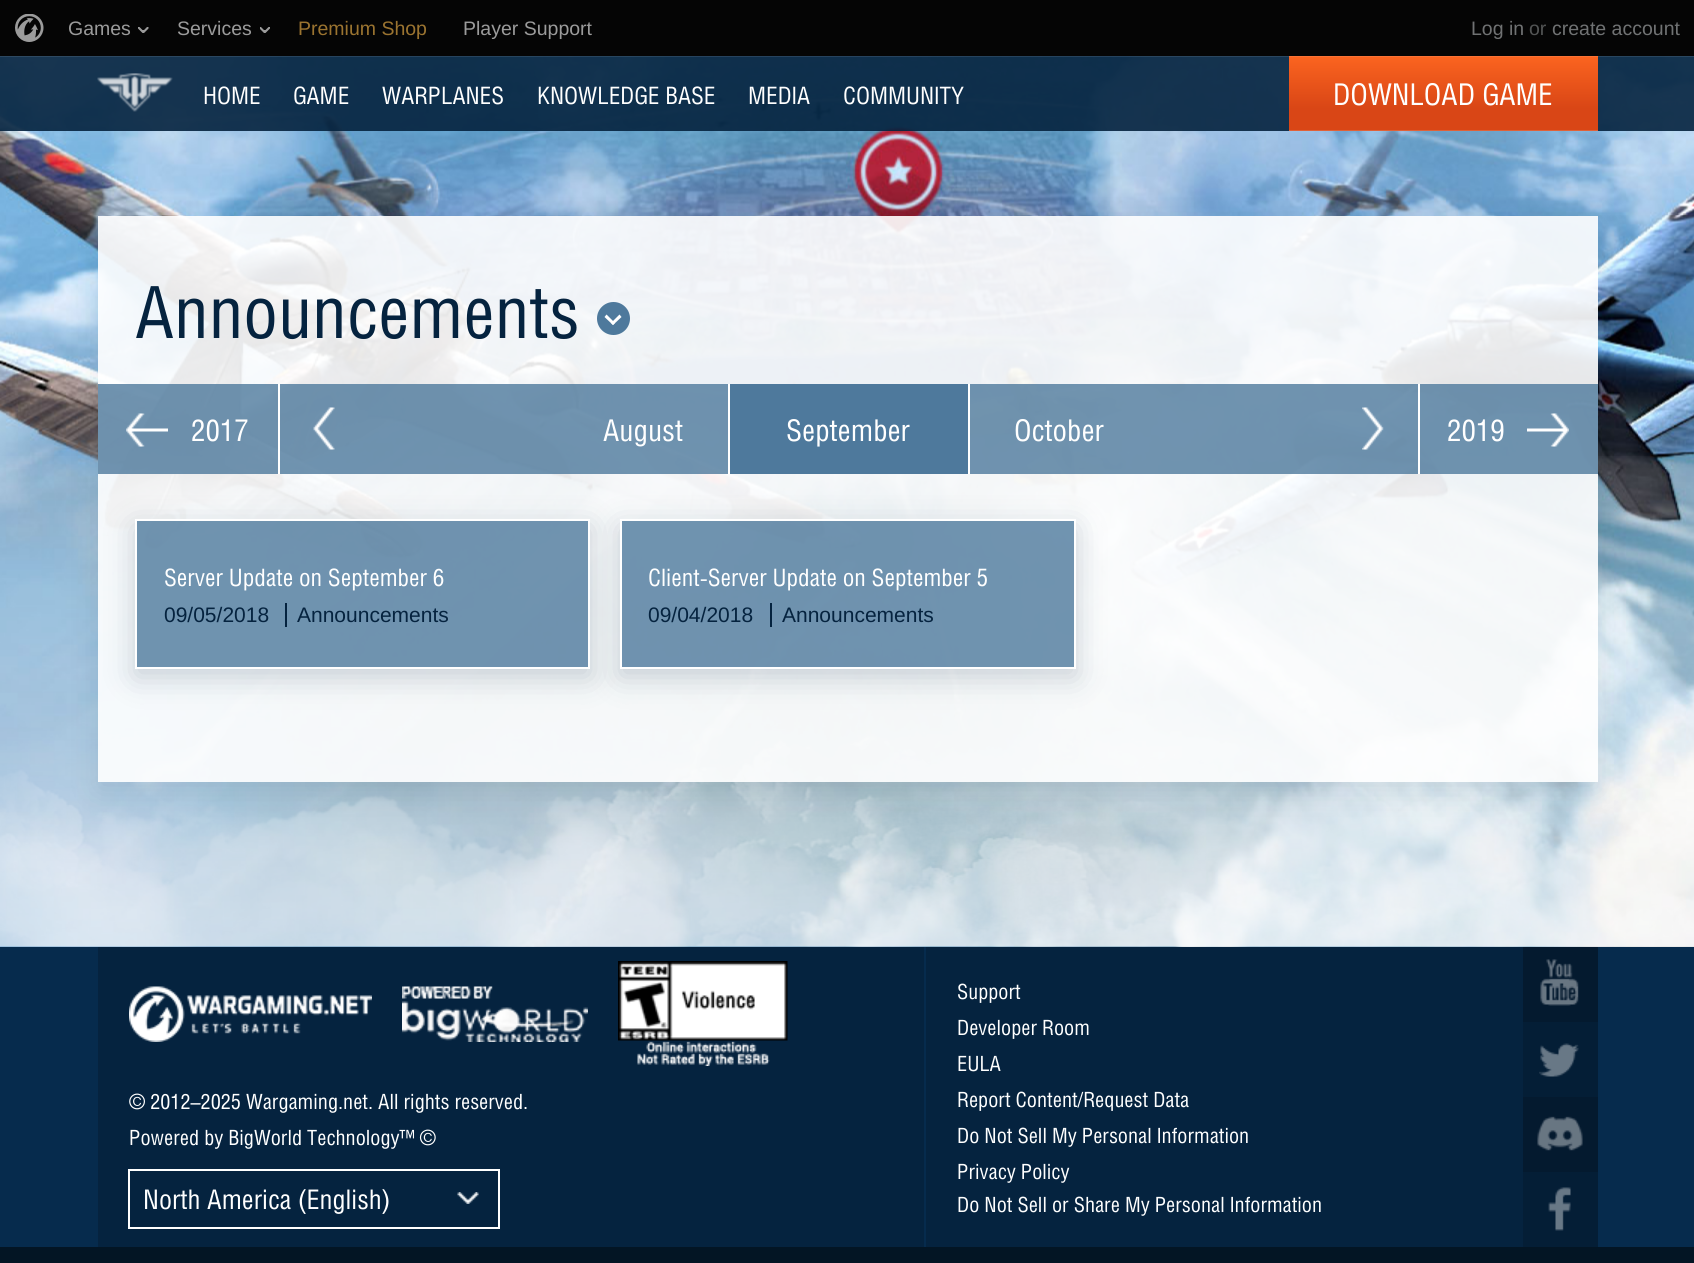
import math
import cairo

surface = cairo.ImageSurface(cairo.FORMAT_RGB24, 1694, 1263)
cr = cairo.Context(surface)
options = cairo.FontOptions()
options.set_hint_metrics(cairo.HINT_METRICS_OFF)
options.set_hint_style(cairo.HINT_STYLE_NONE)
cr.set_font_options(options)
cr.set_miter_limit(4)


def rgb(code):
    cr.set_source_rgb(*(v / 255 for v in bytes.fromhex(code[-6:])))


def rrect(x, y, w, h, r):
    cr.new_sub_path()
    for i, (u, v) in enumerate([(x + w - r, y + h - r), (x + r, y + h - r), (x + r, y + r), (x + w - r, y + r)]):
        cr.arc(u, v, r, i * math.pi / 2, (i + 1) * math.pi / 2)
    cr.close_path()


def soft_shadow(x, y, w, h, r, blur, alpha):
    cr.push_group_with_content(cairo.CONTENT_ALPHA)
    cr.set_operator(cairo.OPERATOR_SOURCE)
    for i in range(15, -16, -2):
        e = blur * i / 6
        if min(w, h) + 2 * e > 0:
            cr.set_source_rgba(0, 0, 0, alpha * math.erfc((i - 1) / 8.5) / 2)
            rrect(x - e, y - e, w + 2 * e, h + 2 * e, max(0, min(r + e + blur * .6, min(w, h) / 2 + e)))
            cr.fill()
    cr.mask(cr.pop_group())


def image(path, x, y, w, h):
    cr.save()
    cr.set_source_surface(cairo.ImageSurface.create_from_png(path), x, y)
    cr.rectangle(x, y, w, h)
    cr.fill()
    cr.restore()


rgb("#ffffff")
cr.paint()
image("img/5.png", 0, 56, 1694, 891)
cr.set_source_rgba(0.02, 0.137, 0.247, 0.9)
cr.rectangle(0, 56, 1694, 75)
cr.fill()
gradient = cairo.LinearGradient(1443, 55, 1443, 131)
gradient.add_color_stop_rgba(0, 0.988, 0.396, 0.125, 1)
gradient.add_color_stop_rgba(0.7, 0.851, 0.275, 0.086, 1)
cr.set_source(gradient)
cr.rectangle(1289, 56, 309, 74)
cr.fill()
cr.rectangle(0, 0, 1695, 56)
cr.set_source_rgba(1, 1, 1, 0.1)
cr.stroke()
rgb("#050505")
cr.rectangle(0, 0, 1694, 56)
cr.fill()
image("img/1.png", 15, 14, 29, 28)
image("img/2.png", 138, 27, 11, 6)
image("img/3.png", 260, 27, 10, 6)
image("img/4.png", 97, 73, 76, 39)
cr.save()
cr.rectangle(1289, 56, 309, 75)
cr.clip()
rgb("#df6239")
cr.set_fill_rule(cairo.FILL_RULE_EVEN_ODD)
cr.new_path()
cr.move_to(1140, -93)
cr.line_to(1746, -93)
cr.line_to(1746, 279)
cr.line_to(1140, 279)
cr.close_path()
cr.move_to(1288, 52)
cr.line_to(1598, 52)
cr.curve_to(1598, 52, 1599, 53, 1599, 54)
cr.line_to(1599, 129)
cr.curve_to(1599, 130, 1598, 130, 1598, 130)
cr.line_to(1288, 130)
cr.curve_to(1288, 130, 1287, 130, 1287, 129)
cr.line_to(1287, 54)
cr.curve_to(1287, 53, 1288, 52, 1288, 52)
cr.close_path()
cr.fill()
cr.restore()
image("img/6.png", 0, 456, 1694, 490)
cr.save()
cr.set_fill_rule(cairo.FILL_RULE_EVEN_ODD)
cr.new_path()
cr.move_to(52, 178)
cr.line_to(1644, 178)
cr.line_to(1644, 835)
cr.line_to(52, 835)
cr.close_path()
cr.move_to(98, 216)
cr.line_to(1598, 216)
cr.line_to(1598, 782)
cr.line_to(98, 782)
cr.close_path()
cr.clip()
rgb("#05233f")
soft_shadow(98, 224, 1500, 565, 0, 15, 0.1)
cr.restore()
cr.set_source_rgba(1, 1, 1, 0.9)
cr.rectangle(98, 216, 1500, 566)
cr.fill()
rgb("#4e799c")
cr.arc(613.5, 318.5, 16.5, 0, 2 * math.pi)
cr.fill()
rgb("#ffffff")
cr.new_path()
cr.move_to(619.5, 314.5)
cr.line_to(621.5, 317)
cr.line_to(613, 325)
cr.line_to(611, 323)
cr.close_path()
cr.fill()
cr.new_path()
cr.move_to(606.5, 314.5)
cr.line_to(615, 323)
cr.line_to(613, 325)
cr.line_to(604.5, 317)
cr.close_path()
cr.fill()
cr.set_source_rgba(0.306, 0.475, 0.612, 0.8)
cr.rectangle(98, 384, 180, 90)
cr.fill()
image("img/7.png", 126, 413, 42, 34)
cr.rectangle(280, 384, 448, 90)
cr.fill()
rgb("#ffffff")
cr.rectangle(278, 384, 2, 90)
cr.fill()
image("img/8.png", 313, 407, 22, 43)
rgb("#4e799c")
cr.rectangle(730, 384, 238, 90)
cr.fill()
rgb("#ffffff")
cr.rectangle(728, 384, 2, 90)
cr.fill()
cr.set_source_rgba(0.306, 0.475, 0.612, 0.8)
cr.rectangle(970, 384, 448, 90)
cr.fill()
rgb("#ffffff")
cr.rectangle(968, 384, 2, 90)
cr.fill()
image("img/9.png", 1362, 407, 22, 43)
cr.set_source_rgba(0.306, 0.475, 0.612, 0.8)
cr.rectangle(1420, 384, 178, 90)
cr.fill()
rgb("#ffffff")
cr.rectangle(1418, 384, 2, 90)
cr.fill()
image("img/10.png", 1527, 413, 42, 34)
cr.save()
cr.set_fill_rule(cairo.FILL_RULE_EVEN_ODD)
cr.new_path()
cr.move_to(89, 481)
cr.line_to(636, 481)
cr.line_to(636, 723)
cr.line_to(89, 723)
cr.close_path()
cr.move_to(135, 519)
cr.line_to(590, 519)
cr.line_to(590, 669)
cr.line_to(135, 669)
cr.close_path()
cr.clip()
rgb("#05233f")
soft_shadow(135, 527, 455, 150, 0, 15, 0.2)
cr.restore()
cr.set_source_rgba(0.306, 0.475, 0.612, 0.8)
cr.rectangle(136, 520, 453, 148)
cr.fill_preserve()
rgb("#ffffff")
cr.stroke()
rgb("#05233f")
cr.rectangle(285, 603, 2, 24)
cr.fill()
cr.save()
cr.set_fill_rule(cairo.FILL_RULE_EVEN_ODD)
cr.new_path()
cr.move_to(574, 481)
cr.line_to(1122, 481)
cr.line_to(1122, 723)
cr.line_to(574, 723)
cr.close_path()
cr.move_to(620, 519)
cr.line_to(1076, 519)
cr.line_to(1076, 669)
cr.line_to(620, 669)
cr.close_path()
cr.clip()
rgb("#05233f")
soft_shadow(620, 527, 456, 150, 0, 15, 0.2)
cr.restore()
cr.set_source_rgba(0.306, 0.475, 0.612, 0.8)
cr.rectangle(621, 520, 454, 148)
cr.fill_preserve()
rgb("#ffffff")
cr.stroke()
for x, y, w, h, color in [
    (770, 603, 2, 24, "#05233f"),
    (0, 1247, 1694, 16, "#031524"),
    (0, 947, 1694, 300, "#062b4d"),
    (98, 947, 826, 300, "#05233f"),
]:
    rgb(color)
    cr.rectangle(x, y, w, h)
    cr.fill()
image("img/11.png", 129, 986, 243, 56)
image("img/12.png", 402, 986, 186, 56)
image("img/13.png", 618, 961, 170, 105)
cr.rectangle(129, 1170, 370, 58)
rgb("#ffffff")
cr.stroke()
image("img/14.png", 457, 1192, 22, 12)
rgb("#05233f")
cr.rectangle(926, 947, 597, 300)
cr.fill()
rgb("#041a2f")
cr.rectangle(1523, 947, 75, 75)
cr.fill()
image("img/15.png", 1540, 959, 39, 47)
rgb("#041e36")
cr.rectangle(1523, 1022, 75, 75)
cr.fill()
image("img/16.png", 1539, 1043, 40, 34)
rgb("#041a2f")
cr.rectangle(1523, 1097, 75, 75)
cr.fill()
image("img/17.png", 1537, 1116, 46, 35)
rgb("#041e36")
cr.rectangle(1523, 1172, 75, 75)
cr.fill()
image("img/18.png", 1548, 1187, 23, 44)
cr.select_font_face("Liberation Sans")
cr.set_font_size(19.5)
rgb("#9b9b9b")
cr.move_to(68, 35)
cr.show_text("Games")
cr.move_to(177, 35)
cr.show_text("Services")
rgb("#9b7430")
cr.move_to(298, 35)
cr.show_text("Premium Shop")
rgb("#9b9b9b")
cr.move_to(463, 35)
cr.show_text("Player Support")
rgb("#707273")
cr.move_to(1471, 35)
cr.show_text("Log in")
rgb("#525454")
cr.move_to(1529, 35)
cr.show_text("or")
rgb("#707273")
cr.move_to(1552, 35)
cr.show_text("create account")
cr.select_font_face("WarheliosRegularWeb")
cr.set_font_size(24)
rgb("#ffffff")
for x, y, s in [
    (203, 104, "HOME"),
    (293, 104, "GAME"),
    (382, 104, "WARPLANES"),
    (537, 104, "KNOWLEDGE BASE"),
    (748, 104, "MEDIA"),
    (843, 104, "COMMUNITY"),
]:
    cr.move_to(x, y)
    cr.show_text(s)
cr.set_font_size(30)
cr.move_to(1333, 105)
cr.show_text("DOWNLOAD GAME")
cr.set_font_size(72)
rgb("#05233f")
cr.move_to(135, 338)
cr.show_text("Announcements")
cr.set_font_size(30)
rgb("#ffffff")
for x, y, s in [
    (191, 441, "2017"),
    (603, 441, "August"),
    (786, 441, "September"),
    (1014, 441, "October"),
    (1447, 441, "2019"),
]:
    cr.move_to(x, y)
    cr.show_text(s)
cr.set_font_size(24)
cr.move_to(164, 586)
cr.show_text("Server Update on September 6")
cr.select_font_face("Liberation Sans")
cr.set_font_size(21)
rgb("#05233f")
cr.move_to(164, 622)
cr.show_text("09/05/2018")
cr.move_to(297, 622)
cr.show_text("Announcements")
cr.select_font_face("WarheliosRegularWeb")
cr.set_font_size(24)
rgb("#ffffff")
cr.move_to(648, 586)
cr.show_text("Client-Server Update on September 5")
cr.select_font_face("Liberation Sans")
cr.set_font_size(21)
rgb("#05233f")
cr.move_to(648, 622)
cr.show_text("09/04/2018")
cr.move_to(782, 622)
cr.show_text("Announcements")
cr.select_font_face("WarheliosRegularWeb")
rgb("#ffffff")
cr.move_to(129, 1109)
cr.show_text("© 2012–2025 Wargaming.net. All rights reserved.")
cr.move_to(129, 1145)
cr.show_text("Powered by BigWorld Technology™ ©")
cr.set_font_size(27)
cr.move_to(143, 1209)
cr.show_text("North America (English)")
cr.set_font_size(21)
for x, y, s in [
    (957, 999, "Support"),
    (957, 1035, "Developer Room"),
    (957, 1071, "EULA"),
    (957, 1107, "Report Content/Request Data"),
    (957, 1143, "Do Not Sell My Personal Information"),
    (957, 1179, "Privacy Policy"),
    (957, 1212, "Do Not Sell or Share My Personal Information"),
]:
    cr.move_to(x, y)
    cr.show_text(s)
surface.write_to_png("page.png")
